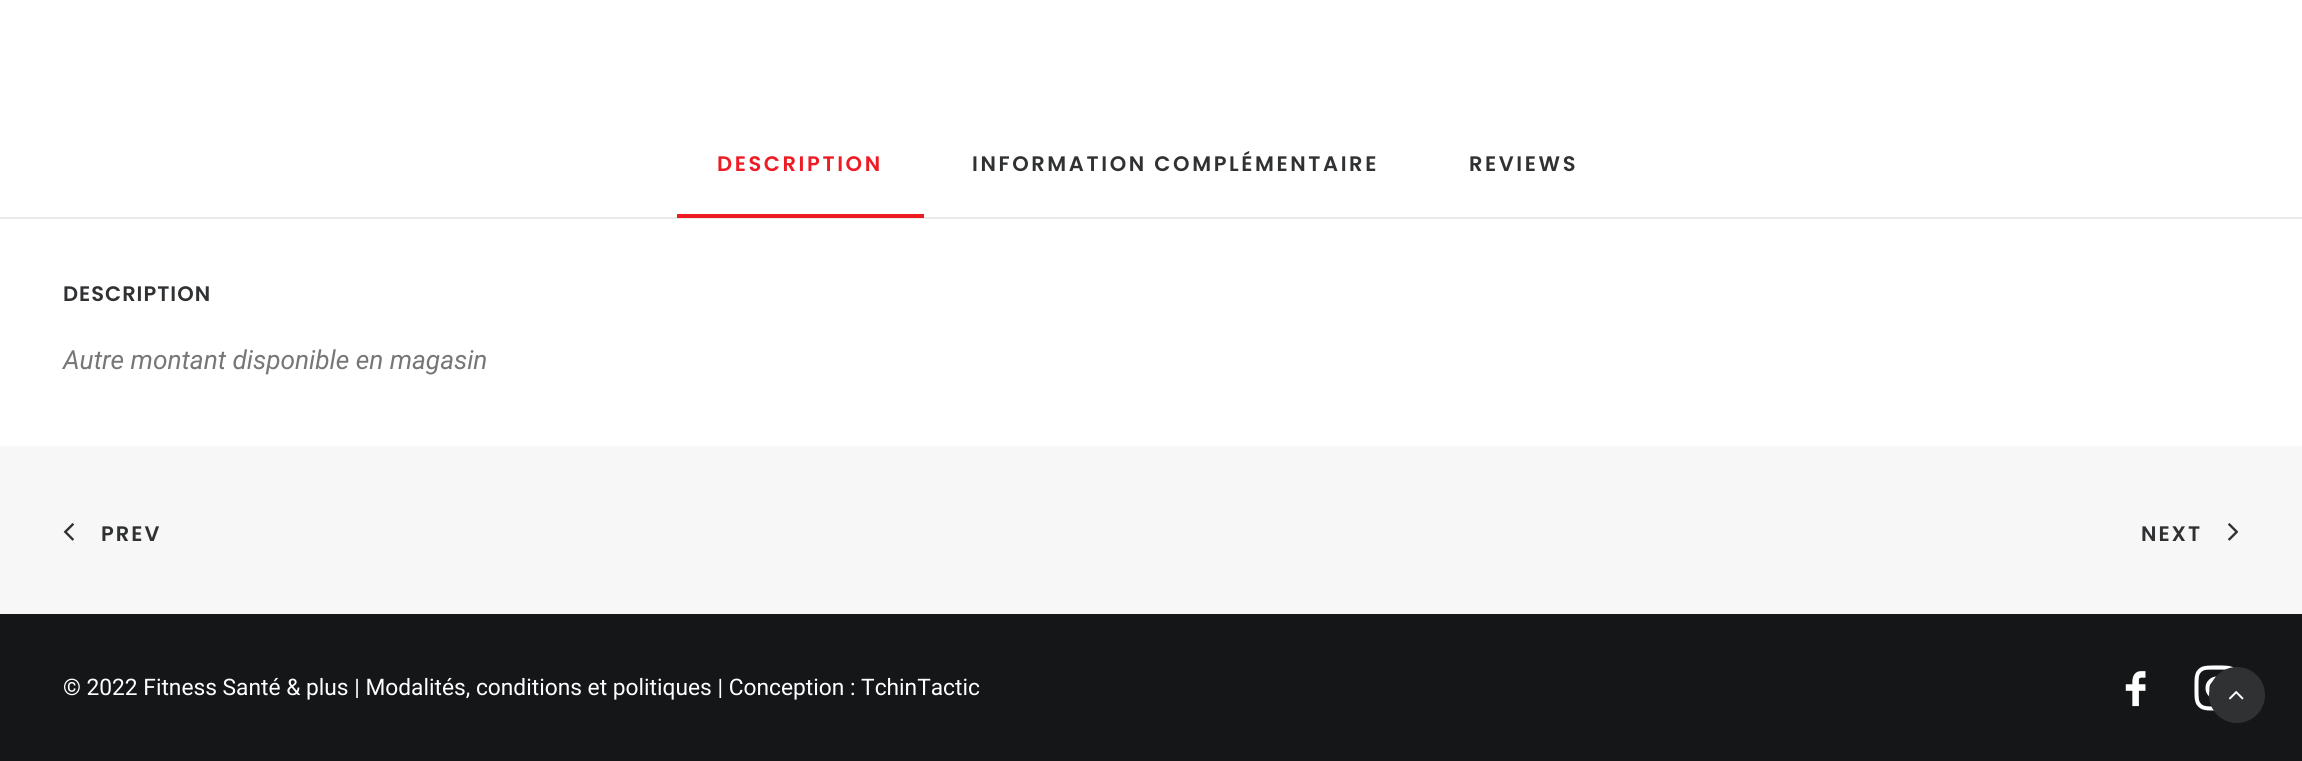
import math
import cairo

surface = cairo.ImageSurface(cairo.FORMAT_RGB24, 2302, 761)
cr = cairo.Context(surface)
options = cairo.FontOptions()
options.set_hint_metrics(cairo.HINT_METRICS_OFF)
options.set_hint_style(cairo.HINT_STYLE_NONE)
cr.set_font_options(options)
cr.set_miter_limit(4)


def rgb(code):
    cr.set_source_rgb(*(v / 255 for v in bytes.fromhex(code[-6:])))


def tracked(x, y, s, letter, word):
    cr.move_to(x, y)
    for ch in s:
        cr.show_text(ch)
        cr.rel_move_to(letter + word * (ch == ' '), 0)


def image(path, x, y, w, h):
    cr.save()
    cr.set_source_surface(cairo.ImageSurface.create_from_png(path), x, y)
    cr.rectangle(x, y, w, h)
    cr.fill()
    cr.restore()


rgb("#ffffff")
cr.paint()
for x, y, w, h, color in [
    (0, 217, 2302, 2, "#eaeaea"),
    (677, 214, 247, 4, "#ed1c24"),
    (0, 446, 2302, 168, "#f7f7f7"),
]:
    rgb(color)
    cr.rectangle(x, y, w, h)
    cr.fill()
image("img/1.png", 63, 523, 11, 18)
image("img/2.png", 2228, 523, 11, 18)
rgb("#141618")
cr.rectangle(0, 614, 2302, 147)
cr.fill()
image("img/3.png", 2125, 671, 21, 36)
image("img/4.png", 2194, 665, 40, 46)
rgb("#303133")
cr.arc(2237, 695, 27, 0, 2 * math.pi)
cr.fill_preserve()
cr.stroke()
image("img/5.png", 2228, 690, 16, 10)
cr.select_font_face("Poppins SemiBold")
cr.set_font_size(21)
rgb("#ed1c24")
tracked(717, 171, "DESCRIPTION", 2.6, 0)
rgb("#303133")
tracked(972, 171, "INFORMATION COMPLÉMENTAIRE", 2.6, 0)
tracked(1469, 171, "REVIEWS", 2.6, 0)
tracked(63, 301, "DESCRIPTION", 1, 0)
cr.select_font_face("Roboto", cairo.FONT_SLANT_ITALIC)
cr.set_font_size(26.25)
rgb("#777777")
cr.move_to(63, 369)
cr.show_text("Autre montant disponible en magasin")
cr.select_font_face("Poppins SemiBold")
cr.set_font_size(21)
rgb("#303133")
tracked(101, 541, "PREV", 2, 0)
tracked(2141, 541, "NEXT", 2, 0)
cr.select_font_face("Roboto")
cr.set_font_size(22.75)
rgb("#ffffff")
cr.move_to(63, 695)
cr.show_text("© 2022 Fitness Santé & plus | Modalités, conditions et politiques | Conception : TchinTactic")
surface.write_to_png("page.png")
